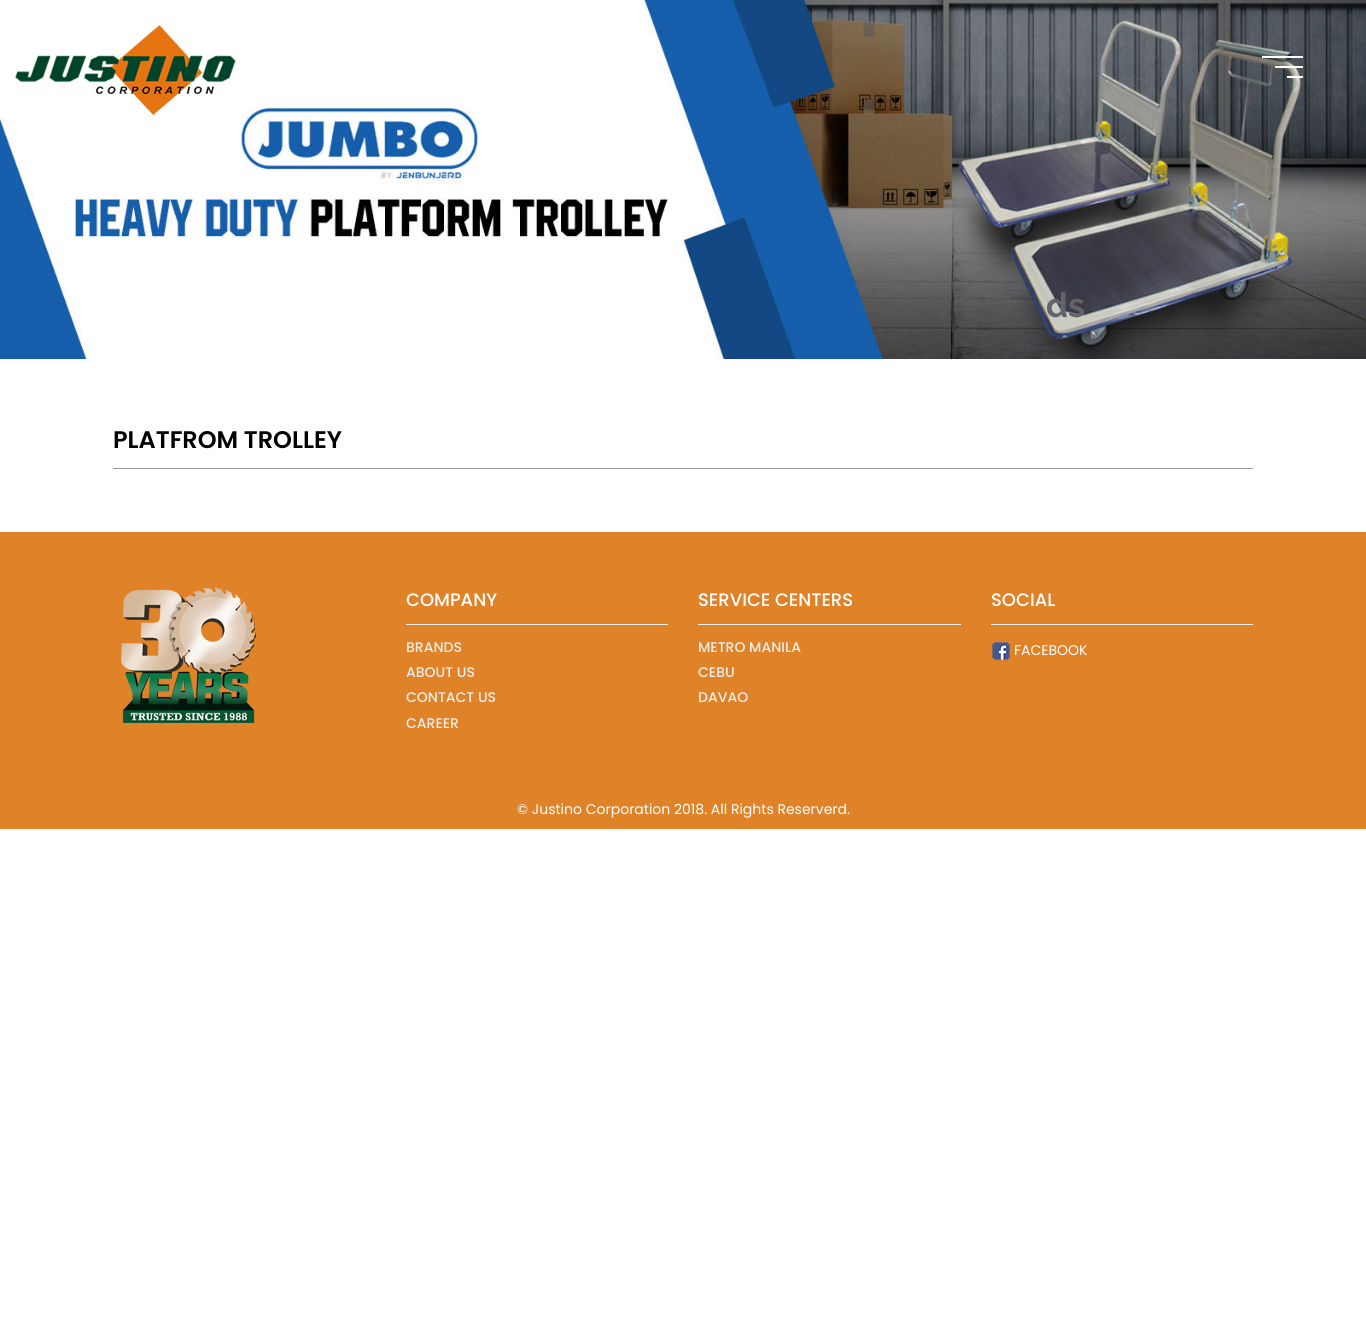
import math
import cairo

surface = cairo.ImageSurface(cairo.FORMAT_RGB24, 1366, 1331)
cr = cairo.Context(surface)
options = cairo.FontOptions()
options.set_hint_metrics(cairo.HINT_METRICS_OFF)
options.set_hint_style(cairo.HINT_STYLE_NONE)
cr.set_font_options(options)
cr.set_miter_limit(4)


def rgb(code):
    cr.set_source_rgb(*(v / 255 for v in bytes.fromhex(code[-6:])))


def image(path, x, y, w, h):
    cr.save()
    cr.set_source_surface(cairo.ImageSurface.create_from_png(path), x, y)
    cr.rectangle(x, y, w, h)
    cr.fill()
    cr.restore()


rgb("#ffffff")
cr.paint()
image("img/1.png", 0, 0, 1366, 359)
image("img/2.png", 15, 25, 221, 90)
cr.save()
cr.rectangle(1260, 56, 45, 22)
cr.clip()
rgb("#ffffff")
cr.new_path()
cr.move_to(1303, 58)
cr.line_to(1262, 58)
cr.line_to(1262, 56)
cr.line_to(1303, 56)
cr.close_path()
cr.move_to(1303, 66)
cr.line_to(1275, 66)
cr.line_to(1275, 68)
cr.line_to(1303, 68)
cr.close_path()
cr.move_to(1303, 76)
cr.line_to(1287, 76)
cr.line_to(1287, 79)
cr.line_to(1303, 79)
cr.close_path()
cr.fill()
cr.restore()
rgb("#999999")
cr.rectangle(113, 468, 1140, 1)
cr.fill()
rgb("#df8228")
cr.rectangle(0, 532, 1366, 297)
cr.fill()
image("img/3.png", 121, 587, 135, 136)
for x, y, w, h, color in [
    (406, 624, 262, 1, "#eeeeee"),
    (698, 624, 263, 1, "#eeeeee"),
    (991, 624, 262, 1, "#eeeeee"),
]:
    rgb(color)
    cr.rectangle(x, y, w, h)
    cr.fill()
image("img/4.png", 992, 642, 18, 18)
cr.select_font_face("Raleway", cairo.FONT_SLANT_NORMAL, cairo.FONT_WEIGHT_BOLD)
cr.set_font_size(34)
rgb("#636467")
cr.move_to(1046, 317)
cr.show_text("ds")
cr.select_font_face("Poppins SemiBold")
cr.set_font_size(24)
rgb("#000000")
cr.move_to(113, 448)
cr.show_text("PLATFROM TROLLEY")
cr.select_font_face("Poppins Medium")
cr.set_font_size(18)
rgb("#ffffff")
cr.move_to(406, 606)
cr.show_text("COMPANY")
cr.set_font_size(14)
rgb("#eeeeee")
for x, y, s in [
    (406, 652, "BRANDS"),
    (406, 677, "ABOUT US"),
    (406, 702, "CONTACT US"),
    (406, 728, "CAREER"),
]:
    cr.move_to(x, y)
    cr.show_text(s)
cr.set_font_size(18)
rgb("#ffffff")
cr.move_to(698, 606)
cr.show_text("SERVICE CENTERS")
cr.set_font_size(14)
rgb("#eeeeee")
for x, y, s in [
    (698, 652, "METRO MANILA"),
    (698, 677, "CEBU"),
    (698, 702, "DAVAO"),
]:
    cr.move_to(x, y)
    cr.show_text(s)
cr.set_font_size(18)
rgb("#ffffff")
cr.move_to(991, 606)
cr.show_text("SOCIAL")
cr.select_font_face("Poppins")
cr.set_font_size(14)
cr.move_to(1014, 655)
cr.show_text("FACEBOOK")
cr.move_to(517, 814)
cr.show_text("© Justino Corporation 2018. All Rights Reserverd.")
surface.write_to_png("page.png")
